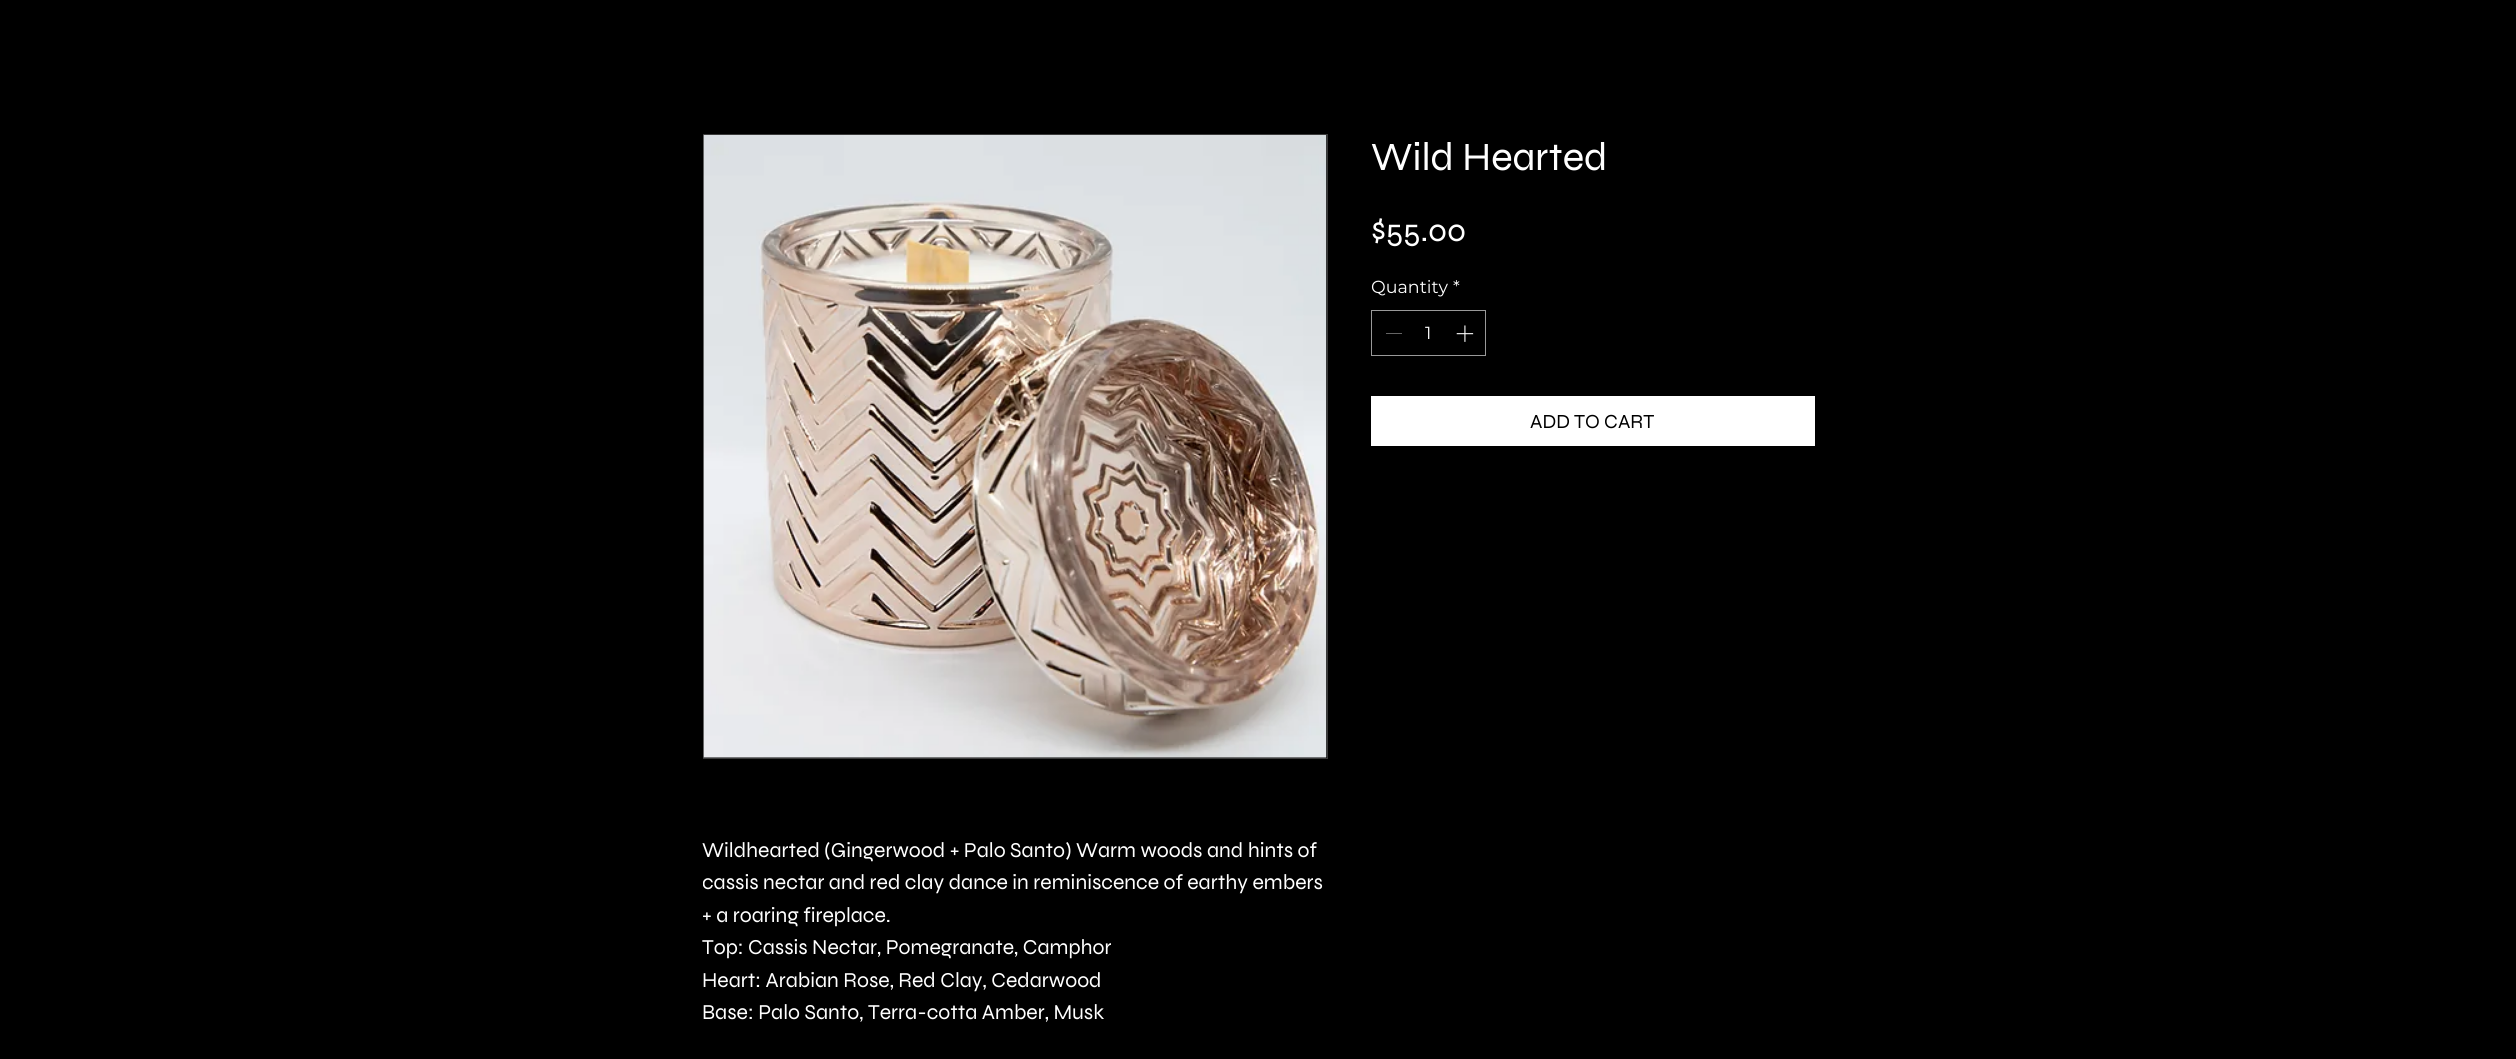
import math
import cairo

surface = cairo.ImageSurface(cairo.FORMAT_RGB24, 2516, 1059)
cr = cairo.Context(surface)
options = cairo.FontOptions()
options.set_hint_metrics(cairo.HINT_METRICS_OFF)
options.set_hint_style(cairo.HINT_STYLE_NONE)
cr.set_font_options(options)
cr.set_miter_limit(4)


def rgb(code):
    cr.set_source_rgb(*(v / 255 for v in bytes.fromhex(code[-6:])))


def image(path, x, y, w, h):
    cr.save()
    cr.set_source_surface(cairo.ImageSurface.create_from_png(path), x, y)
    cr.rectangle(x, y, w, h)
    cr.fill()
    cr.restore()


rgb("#000000")
cr.paint()
cr.rectangle(1371.5, 310.5, 114, 45)
rgb("#999999")
cr.set_line_width(1)
cr.stroke()
rgb("#646464")
cr.rectangle(1386, 333, 16, 1)
cr.fill()
image("img/1.png", 1456, 325, 18, 17)
rgb("#ffffff")
cr.rectangle(1371, 396, 444, 50)
cr.fill()
cr.rectangle(703.5, 134.5, 624, 624)
rgb("#3b3b3b")
cr.stroke()
image("img/2.png", 703, 135, 624, 623)
cr.select_font_face("Syne")
cr.set_font_size(40)
rgb("#ffffff")
cr.move_to(1371, 170)
cr.show_text("Wild Hearted")
cr.set_font_size(32.5)
cr.move_to(1371, 241)
cr.show_text("$55.00")
cr.select_font_face("Montserrat")
cr.set_font_size(17.5)
for x, y, s in [
    (1371, 293, "Quantity"),
    (1453, 293, "*"),
    (1425, 339, "1"),
]:
    cr.move_to(x, y)
    cr.show_text(s)
cr.select_font_face("Syne")
cr.set_font_size(20)
rgb("#000000")
cr.move_to(1530, 428)
cr.show_text("ADD TO CART")
cr.set_font_size(21.25)
rgb("#ffffff")
cr.move_to(702, 857)
cr.show_text("Wildhearted (Gingerwood + Palo Santo) Warm woods and hints of")
cr.save()
cr.rectangle(703, 834, 625, 195)
cr.clip()
cr.move_to(702, 889)
cr.show_text("cassis nectar and red clay dance in reminiscence of earthy embers")
cr.restore()
for x, y, s in [
    (702, 922, "+ a roaring fireplace."),
    (702, 954, "Top: Cassis Nectar, Pomegranate, Camphor"),
    (702, 987, "Heart: Arabian Rose, Red Clay, Cedarwood"),
    (702, 1019, "Base: Palo Santo, Terra-cotta Amber, Musk"),
]:
    cr.move_to(x, y)
    cr.show_text(s)
surface.write_to_png("page.png")
